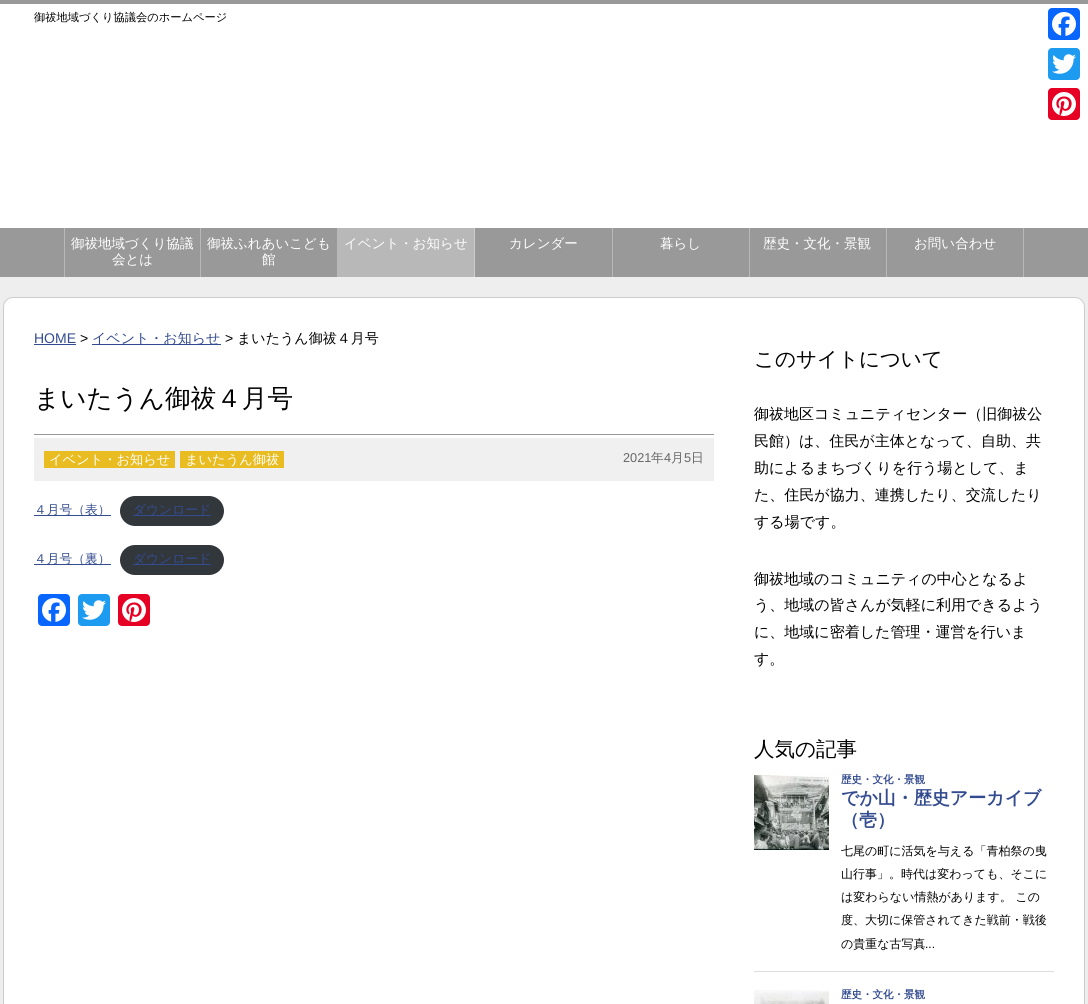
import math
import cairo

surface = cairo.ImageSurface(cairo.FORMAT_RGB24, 1088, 1004)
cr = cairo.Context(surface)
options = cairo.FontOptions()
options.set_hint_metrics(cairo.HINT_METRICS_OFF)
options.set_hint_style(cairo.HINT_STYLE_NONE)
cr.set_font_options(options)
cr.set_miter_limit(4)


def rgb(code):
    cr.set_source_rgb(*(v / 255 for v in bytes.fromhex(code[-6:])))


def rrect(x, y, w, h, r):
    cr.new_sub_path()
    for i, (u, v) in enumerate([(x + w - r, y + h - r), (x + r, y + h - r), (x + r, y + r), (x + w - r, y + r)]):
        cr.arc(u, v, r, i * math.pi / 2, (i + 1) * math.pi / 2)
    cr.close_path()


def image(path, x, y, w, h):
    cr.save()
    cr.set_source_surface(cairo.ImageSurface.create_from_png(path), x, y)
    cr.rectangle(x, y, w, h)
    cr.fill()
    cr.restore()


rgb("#eeeeee")
cr.paint()
for x, y, w, h, color in [
    (0, 4, 1088, 224, "#ffffff"),
    (0, 0, 1088, 4, "#999999"),
    (0, 228, 1088, 49, "#999999"),
    (200, 228, 1, 49, "#b8b8b8"),
    (64, 228, 1, 49, "#b8b8b8"),
    (337, 228, 137, 49, "#b8b8b8"),
    (474, 228, 1, 49, "#cdcdcd"),
    (612, 228, 1, 49, "#b8b8b8"),
    (749, 228, 1, 49, "#b8b8b8"),
    (886, 228, 1, 49, "#b8b8b8"),
    (1023, 228, 1, 49, "#b8b8b8"),
]:
    rgb(color)
    cr.rectangle(x, y, w, h)
    cr.fill()
rgb("#0866ff")
rrect(1048, 8, 32, 32, 4)
cr.fill()
image("img/1.png", 1052, 12, 24, 24)
rgb("#1d9bf0")
rrect(1048, 48, 32, 32, 4)
cr.fill()
image("img/2.png", 1052, 54, 24, 20)
rgb("#e60023")
rrect(1048, 88, 32, 32, 4)
cr.fill()
image("img/3.png", 1052, 92, 24, 24)
rgb("#ffffff")
rrect(3.5, 297.5, 1081, 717, 9.5)
cr.fill_preserve()
rgb("#cccccc")
cr.set_line_width(1)
cr.stroke()
for x, y, w, h, color in [
    (34, 344, 42, 1, "#334b8f"),
    (92, 344, 129, 1, "#334b8f"),
    (34, 434, 680, 1, "#999999"),
    (34, 438, 680, 43, "#f0f0f0"),
    (44, 451, 131, 17, "#e9bc21"),
    (180, 451, 104, 17, "#e9bc21"),
    (34, 515, 77, 1, "#334b8f"),
]:
    rgb(color)
    cr.rectangle(x, y, w, h)
    cr.fill()
rgb("#32373c")
rrect(120, 496, 104, 30, 15)
cr.fill()
rgb("#334b8f")
cr.rectangle(133, 515, 78, 1)
cr.fill()
cr.rectangle(34, 564, 77, 1)
cr.fill()
rgb("#32373c")
rrect(120, 545, 104, 30, 15)
cr.fill()
rgb("#334b8f")
cr.rectangle(133, 564, 78, 1)
cr.fill()
rgb("#0866ff")
rrect(38, 594, 32, 32, 4)
cr.fill()
image("img/1.png", 42, 598, 24, 24)
rgb("#1d9bf0")
rrect(78, 594, 32, 32, 4)
cr.fill()
image("img/2.png", 82, 600, 24, 20)
rgb("#e60023")
rrect(118, 594, 32, 32, 4)
cr.fill()
image("img/3.png", 122, 598, 24, 24)
rgb("#dddddd")
cr.rectangle(754, 971, 300, 1)
cr.fill()
image("img/4.png", 754, 775, 75, 75)
image("img/5.png", 754, 990, 75, 14)
cr.select_font_face("WenQuanYi Zen Hei Medium")
cr.set_font_size(11.25)
rgb("#000000")
cr.move_to(34, 21)
cr.show_text("御祓地域づくり協議会のホームページ")
cr.set_font_size(13.5)
rgb("#ffffff")
for x, y, s in [
    (71, 248, "御祓地域づくり協議"),
    (112, 264, "会とは"),
    (207, 248, "御祓ふれあいこども"),
    (262, 264, "館"),
    (344, 248, "イベント・お知らせ"),
    (509, 248, "カレンダー"),
    (660, 248, "暮らし"),
    (763, 248, "歴史・文化・景観"),
    (914, 248, "お問い合わせ"),
]:
    cr.move_to(x, y)
    cr.show_text(s)
cr.select_font_face("Liberation Sans")
cr.set_font_size(14)
rgb("#334b8f")
cr.move_to(34, 343)
cr.show_text("HOME")
rgb("#000000")
cr.move_to(80, 343)
cr.show_text(">")
cr.select_font_face("WenQuanYi Zen Hei Medium")
rgb("#334b8f")
cr.move_to(92, 343)
cr.show_text("イベント・お知らせ")
cr.select_font_face("Liberation Sans")
rgb("#000000")
cr.move_to(225, 343)
cr.show_text(">")
cr.select_font_face("WenQuanYi Zen Hei Medium")
cr.move_to(237, 343)
cr.show_text("まいたうん御祓４月号")
cr.set_font_size(25.6)
cr.move_to(34, 407)
cr.show_text("まいたうん御祓４月号")
cr.set_font_size(13.25)
rgb("#ffffff")
cr.move_to(49, 464)
cr.show_text("イベント・お知らせ")
cr.move_to(185, 464)
cr.show_text("まいたうん御祓")
cr.select_font_face("Liberation Sans")
cr.set_font_size(12.75)
rgb("#666666")
cr.move_to(623, 462)
cr.show_text("2021")
cr.select_font_face("WenQuanYi Zen Hei Medium")
cr.move_to(651, 462)
cr.show_text("年")
cr.select_font_face("Liberation Sans")
cr.move_to(664, 462)
cr.show_text("4")
cr.select_font_face("WenQuanYi Zen Hei Medium")
cr.move_to(671, 462)
cr.show_text("月")
cr.select_font_face("Liberation Sans")
cr.move_to(684, 462)
cr.show_text("5")
cr.select_font_face("WenQuanYi Zen Hei Medium")
cr.move_to(691, 462)
cr.show_text("日")
rgb("#334b8f")
for x, y, s in [
    (34, 514, "４月号（表）"),
    (133, 514, "ダウンロード"),
    (34, 563, "４月号（裏）"),
    (133, 563, "ダウンロード"),
]:
    cr.move_to(x, y)
    cr.show_text(s)
cr.set_font_size(20.5)
rgb("#000000")
cr.move_to(754, 366)
cr.show_text("このサイトについて")
cr.set_font_size(15)
for x, y, s in [
    (754, 419, "御祓地区コミュニティセンター（旧御祓公"),
    (754, 446, "民館）は、住民が主体となって、自助、共"),
    (754, 473, "助によるまちづくりを行う場として、ま"),
    (754, 500, "た、住民が協力、連携したり、交流したり"),
    (754, 527, "する場です。"),
    (754, 584, "御祓地域のコミュニティの中心となるよ"),
    (754, 610, "う、地域の皆さんが気軽に利用できるよう"),
    (754, 637, "に、地域に密着した管理・運営を行いま"),
    (754, 664, "す。"),
]:
    cr.move_to(x, y)
    cr.show_text(s)
cr.set_font_size(20.5)
cr.move_to(754, 756)
cr.show_text("人気の記事")
cr.select_font_face("WenQuanYi Zen Hei", cairo.FONT_SLANT_NORMAL, cairo.FONT_WEIGHT_BOLD)
cr.set_font_size(10.5)
rgb("#334b8f")
cr.move_to(841, 783)
cr.show_text("歴史・文化・景観")
cr.set_font_size(18)
cr.move_to(841, 804)
cr.show_text("でか山・歴史アーカイブ")
cr.move_to(841, 826)
cr.show_text("（壱）")
cr.select_font_face("WenQuanYi Zen Hei Medium")
cr.set_font_size(12)
rgb("#000000")
for x, y, s in [
    (841, 855, "七尾の町に活気を与える「青柏祭の曳"),
    (841, 878, "山行事」。時代は変わっても、そこに"),
    (841, 901, "は変わらない情熱があります。 この"),
    (841, 924, "度、大切に保管されてきた戦前・戦後"),
    (841, 948, "の貴重な古写真"),
]:
    cr.move_to(x, y)
    cr.show_text(s)
cr.select_font_face("Liberation Sans")
cr.move_to(925, 948)
cr.show_text("...")
cr.select_font_face("WenQuanYi Zen Hei", cairo.FONT_SLANT_NORMAL, cairo.FONT_WEIGHT_BOLD)
cr.set_font_size(10.5)
rgb("#334b8f")
cr.move_to(841, 998)
cr.show_text("歴史・文化・景観")
surface.write_to_png("page.png")
